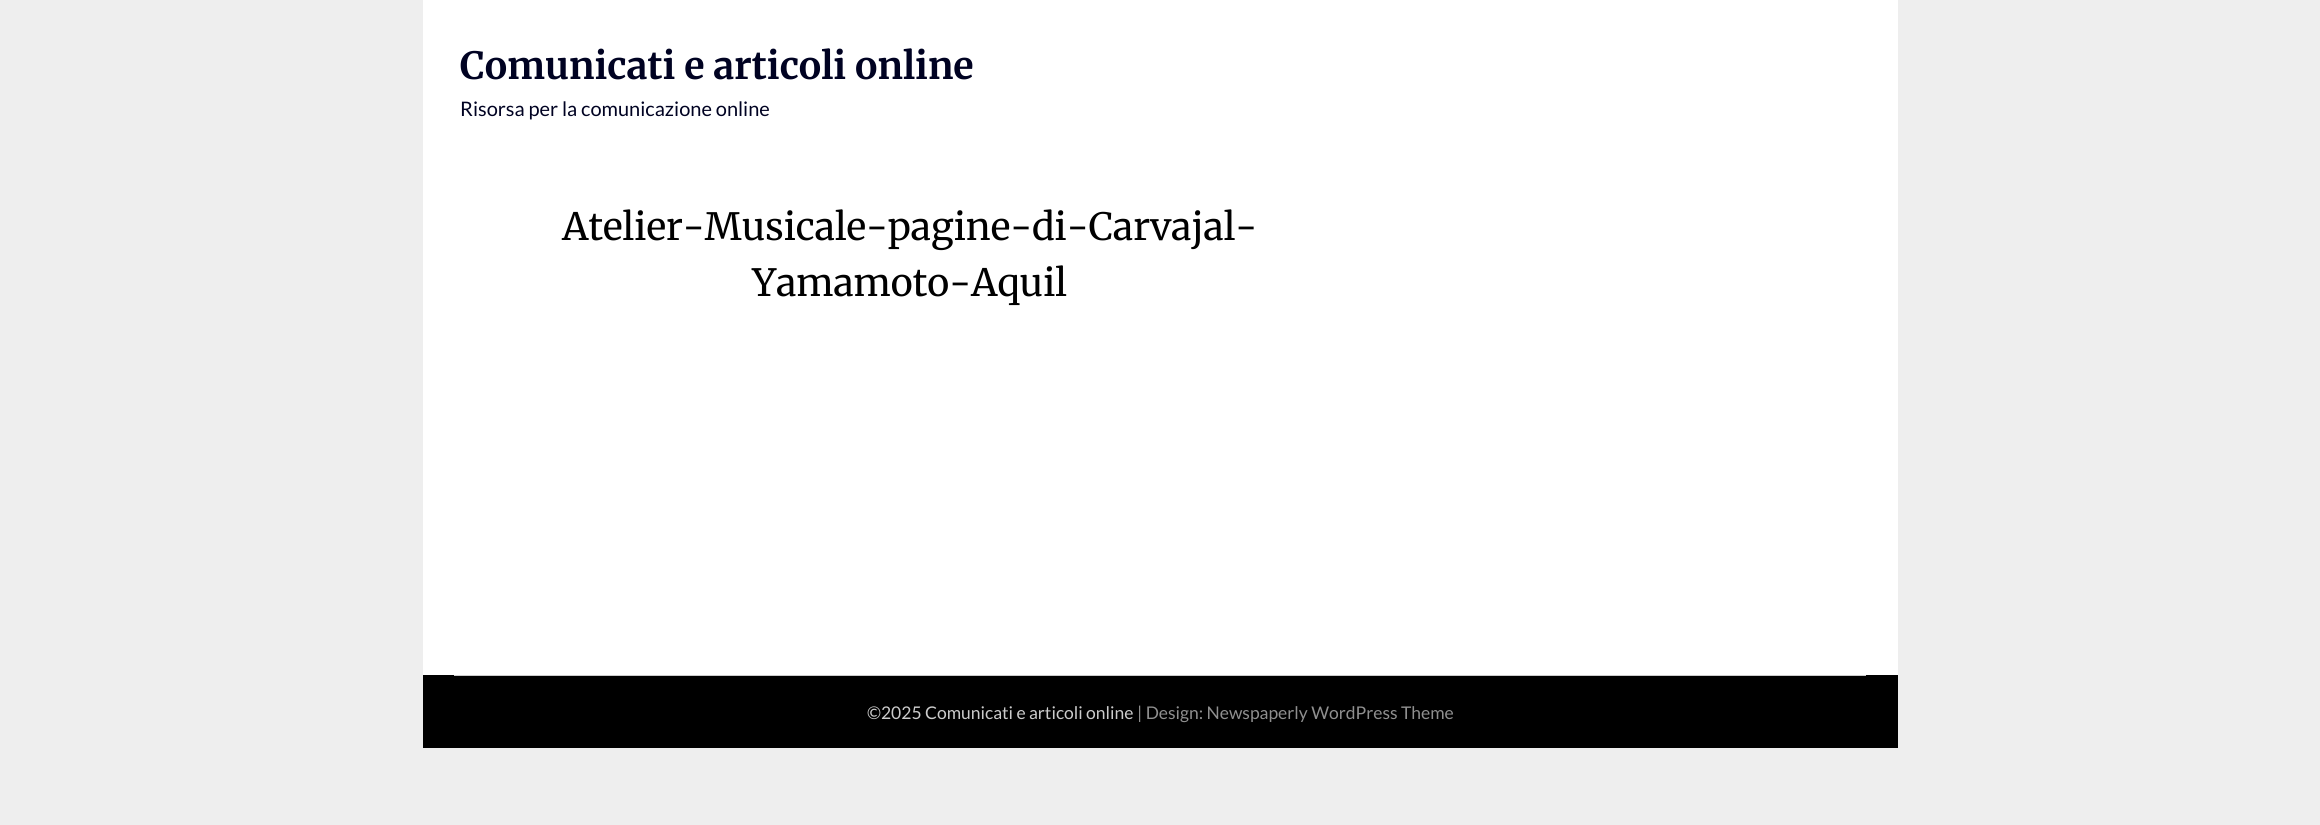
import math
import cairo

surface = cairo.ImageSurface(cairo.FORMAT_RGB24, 2320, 825)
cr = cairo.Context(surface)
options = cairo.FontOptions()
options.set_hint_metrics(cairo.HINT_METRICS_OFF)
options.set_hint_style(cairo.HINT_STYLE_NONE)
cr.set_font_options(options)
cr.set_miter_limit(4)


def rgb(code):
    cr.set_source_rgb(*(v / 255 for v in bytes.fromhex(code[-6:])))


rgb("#eeeeee")
cr.paint()
for x, y, w, h, color in [
    (423, 0, 1475, 675, "#ffffff"),
    (423, 675, 1475, 73, "#000000"),
    (454, 675, 1412, 1, "#cccccc"),
]:
    rgb(color)
    cr.rectangle(x, y, w, h)
    cr.fill()
cr.select_font_face("Merriweather", cairo.FONT_SLANT_NORMAL, cairo.FONT_WEIGHT_BOLD)
cr.set_font_size(37.5)
rgb("#000222")
cr.move_to(460, 79)
cr.show_text("Comunicati e articoli online")
cr.select_font_face("Lato")
cr.set_font_size(20)
cr.move_to(460, 116)
cr.show_text("Risorsa per la comunicazione online")
cr.select_font_face("Merriweather")
cr.set_font_size(37.5)
rgb("#000000")
cr.move_to(562, 240)
cr.show_text("Atelier-Musicale-pagine-di-Carvajal-")
cr.move_to(752, 296)
cr.show_text("Yamamoto-Aquil")
cr.select_font_face("Lato")
cr.set_font_size(17.5)
rgb("#cccccc")
cr.move_to(867, 719)
cr.show_text("©2025 Comunicati e articoli online")
rgb("#8f8f8f")
cr.move_to(1137, 719)
cr.show_text("| Design: Newspaperly WordPress Theme")
surface.write_to_png("page.png")
